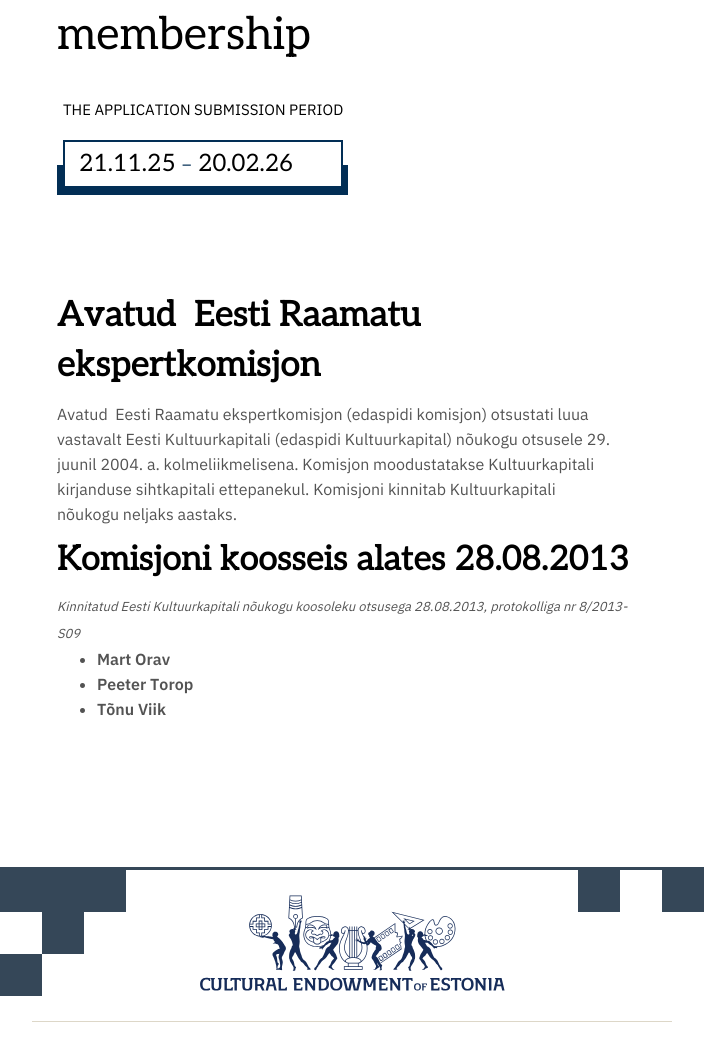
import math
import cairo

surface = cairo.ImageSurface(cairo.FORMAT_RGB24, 704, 1052)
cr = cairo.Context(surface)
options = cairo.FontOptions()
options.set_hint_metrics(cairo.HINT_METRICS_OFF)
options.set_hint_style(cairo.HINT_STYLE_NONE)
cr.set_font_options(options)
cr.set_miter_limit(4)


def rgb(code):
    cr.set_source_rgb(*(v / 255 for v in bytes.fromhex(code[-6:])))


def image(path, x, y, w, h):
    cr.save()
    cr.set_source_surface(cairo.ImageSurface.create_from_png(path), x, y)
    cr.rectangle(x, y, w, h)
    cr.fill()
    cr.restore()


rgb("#ffffff")
cr.paint()
rgb("#022e55")
cr.rectangle(57, 165, 291, 30)
cr.fill()
rgb("#ffffff")
cr.rectangle(65, 165, 276, 21)
cr.fill()
cr.rectangle(64, 141, 278, 46)
rgb("#022e55")
cr.stroke()
rgb("#535353")
cr.arc(82.5, 660.5, 2.5, 0, 2 * math.pi)
cr.fill()
cr.arc(82.5, 685.5, 2.5, 0, 2 * math.pi)
cr.fill()
cr.arc(82.5, 710.5, 2.5, 0, 2 * math.pi)
cr.fill()
for x, y, w, h, color in [
    (0, 867, 704, 3, "#354758"),
    (0, 870, 126, 42, "#354758"),
    (578, 870, 42, 42, "#354758"),
    (662, 870, 42, 42, "#354758"),
    (42, 912, 42, 42, "#354758"),
    (0, 954, 42, 42, "#354758"),
]:
    rgb(color)
    cr.rectangle(x, y, w, h)
    cr.fill()
image("img/1.png", 200, 895, 305, 96)
rgb("#ddd7c8")
cr.rectangle(32, 1021, 640, 1)
cr.fill()
cr.select_font_face("Aleo")
cr.set_font_size(45)
rgb("#000000")
cr.move_to(57, 49)
cr.show_text("membership")
cr.select_font_face("IBM Plex Sans")
cr.set_font_size(15)
cr.move_to(63, 115)
cr.show_text("THE APPLICATION SUBMISSION PERIOD")
cr.select_font_face("Aleo")
cr.set_font_size(24)
cr.move_to(79, 171)
cr.show_text("21.11.25")
cr.select_font_face("IBM Plex Sans")
cr.set_font_size(16)
rgb("#022e55")
cr.move_to(182, 170)
cr.show_text("–")
cr.select_font_face("Aleo")
cr.set_font_size(24)
rgb("#000000")
cr.move_to(198, 171)
cr.show_text("20.02.26")
cr.select_font_face("Aleo", cairo.FONT_SLANT_NORMAL, cairo.FONT_WEIGHT_BOLD)
cr.set_font_size(35)
cr.move_to(57, 326)
cr.show_text("Avatud  Eesti Raamatu")
cr.move_to(57, 376)
cr.show_text("ekspertkomisjon")
cr.select_font_face("IBM Plex Sans")
cr.set_font_size(16)
rgb("#535353")
for x, y, s in [
    (57, 420, "Avatud  Eesti Raamatu ekspertkomisjon (edaspidi komisjon) otsustati luua"),
    (57, 445, "vastavalt Eesti Kultuurkapitali (edaspidi Kultuurkapital) nõukogu otsusele 29."),
    (57, 470, "juunil 2004. a. kolmeliikmelisena. Komisjon moodustatakse Kultuurkapitali"),
    (57, 495, "kirjanduse sihtkapitali ettepanekul. Komisjoni kinnitab Kultuurkapitali"),
    (57, 520, "nõukogu neljaks aastaks."),
]:
    cr.move_to(x, y)
    cr.show_text(s)
cr.select_font_face("Aleo", cairo.FONT_SLANT_NORMAL, cairo.FONT_WEIGHT_BOLD)
cr.set_font_size(34)
rgb("#000000")
cr.move_to(57, 570)
cr.show_text("Komisjoni koosseis alates 28.08.2013")
cr.select_font_face("IBM Plex Sans", cairo.FONT_SLANT_ITALIC)
cr.set_font_size(13)
rgb("#535353")
cr.move_to(57, 611)
cr.show_text("Kinnitatud Eesti Kultuurkapitali nõukogu koosoleku otsusega 28.08.2013, protokolliga nr 8/2013-")
cr.move_to(57, 638)
cr.show_text("S09")
cr.select_font_face("IBM Plex Sans SemiBold")
cr.set_font_size(16)
for x, y, s in [
    (97, 665, "Mart Orav"),
    (97, 690, "Peeter Torop"),
    (97, 715, "Tõnu Viik"),
]:
    cr.move_to(x, y)
    cr.show_text(s)
surface.write_to_png("page.png")
